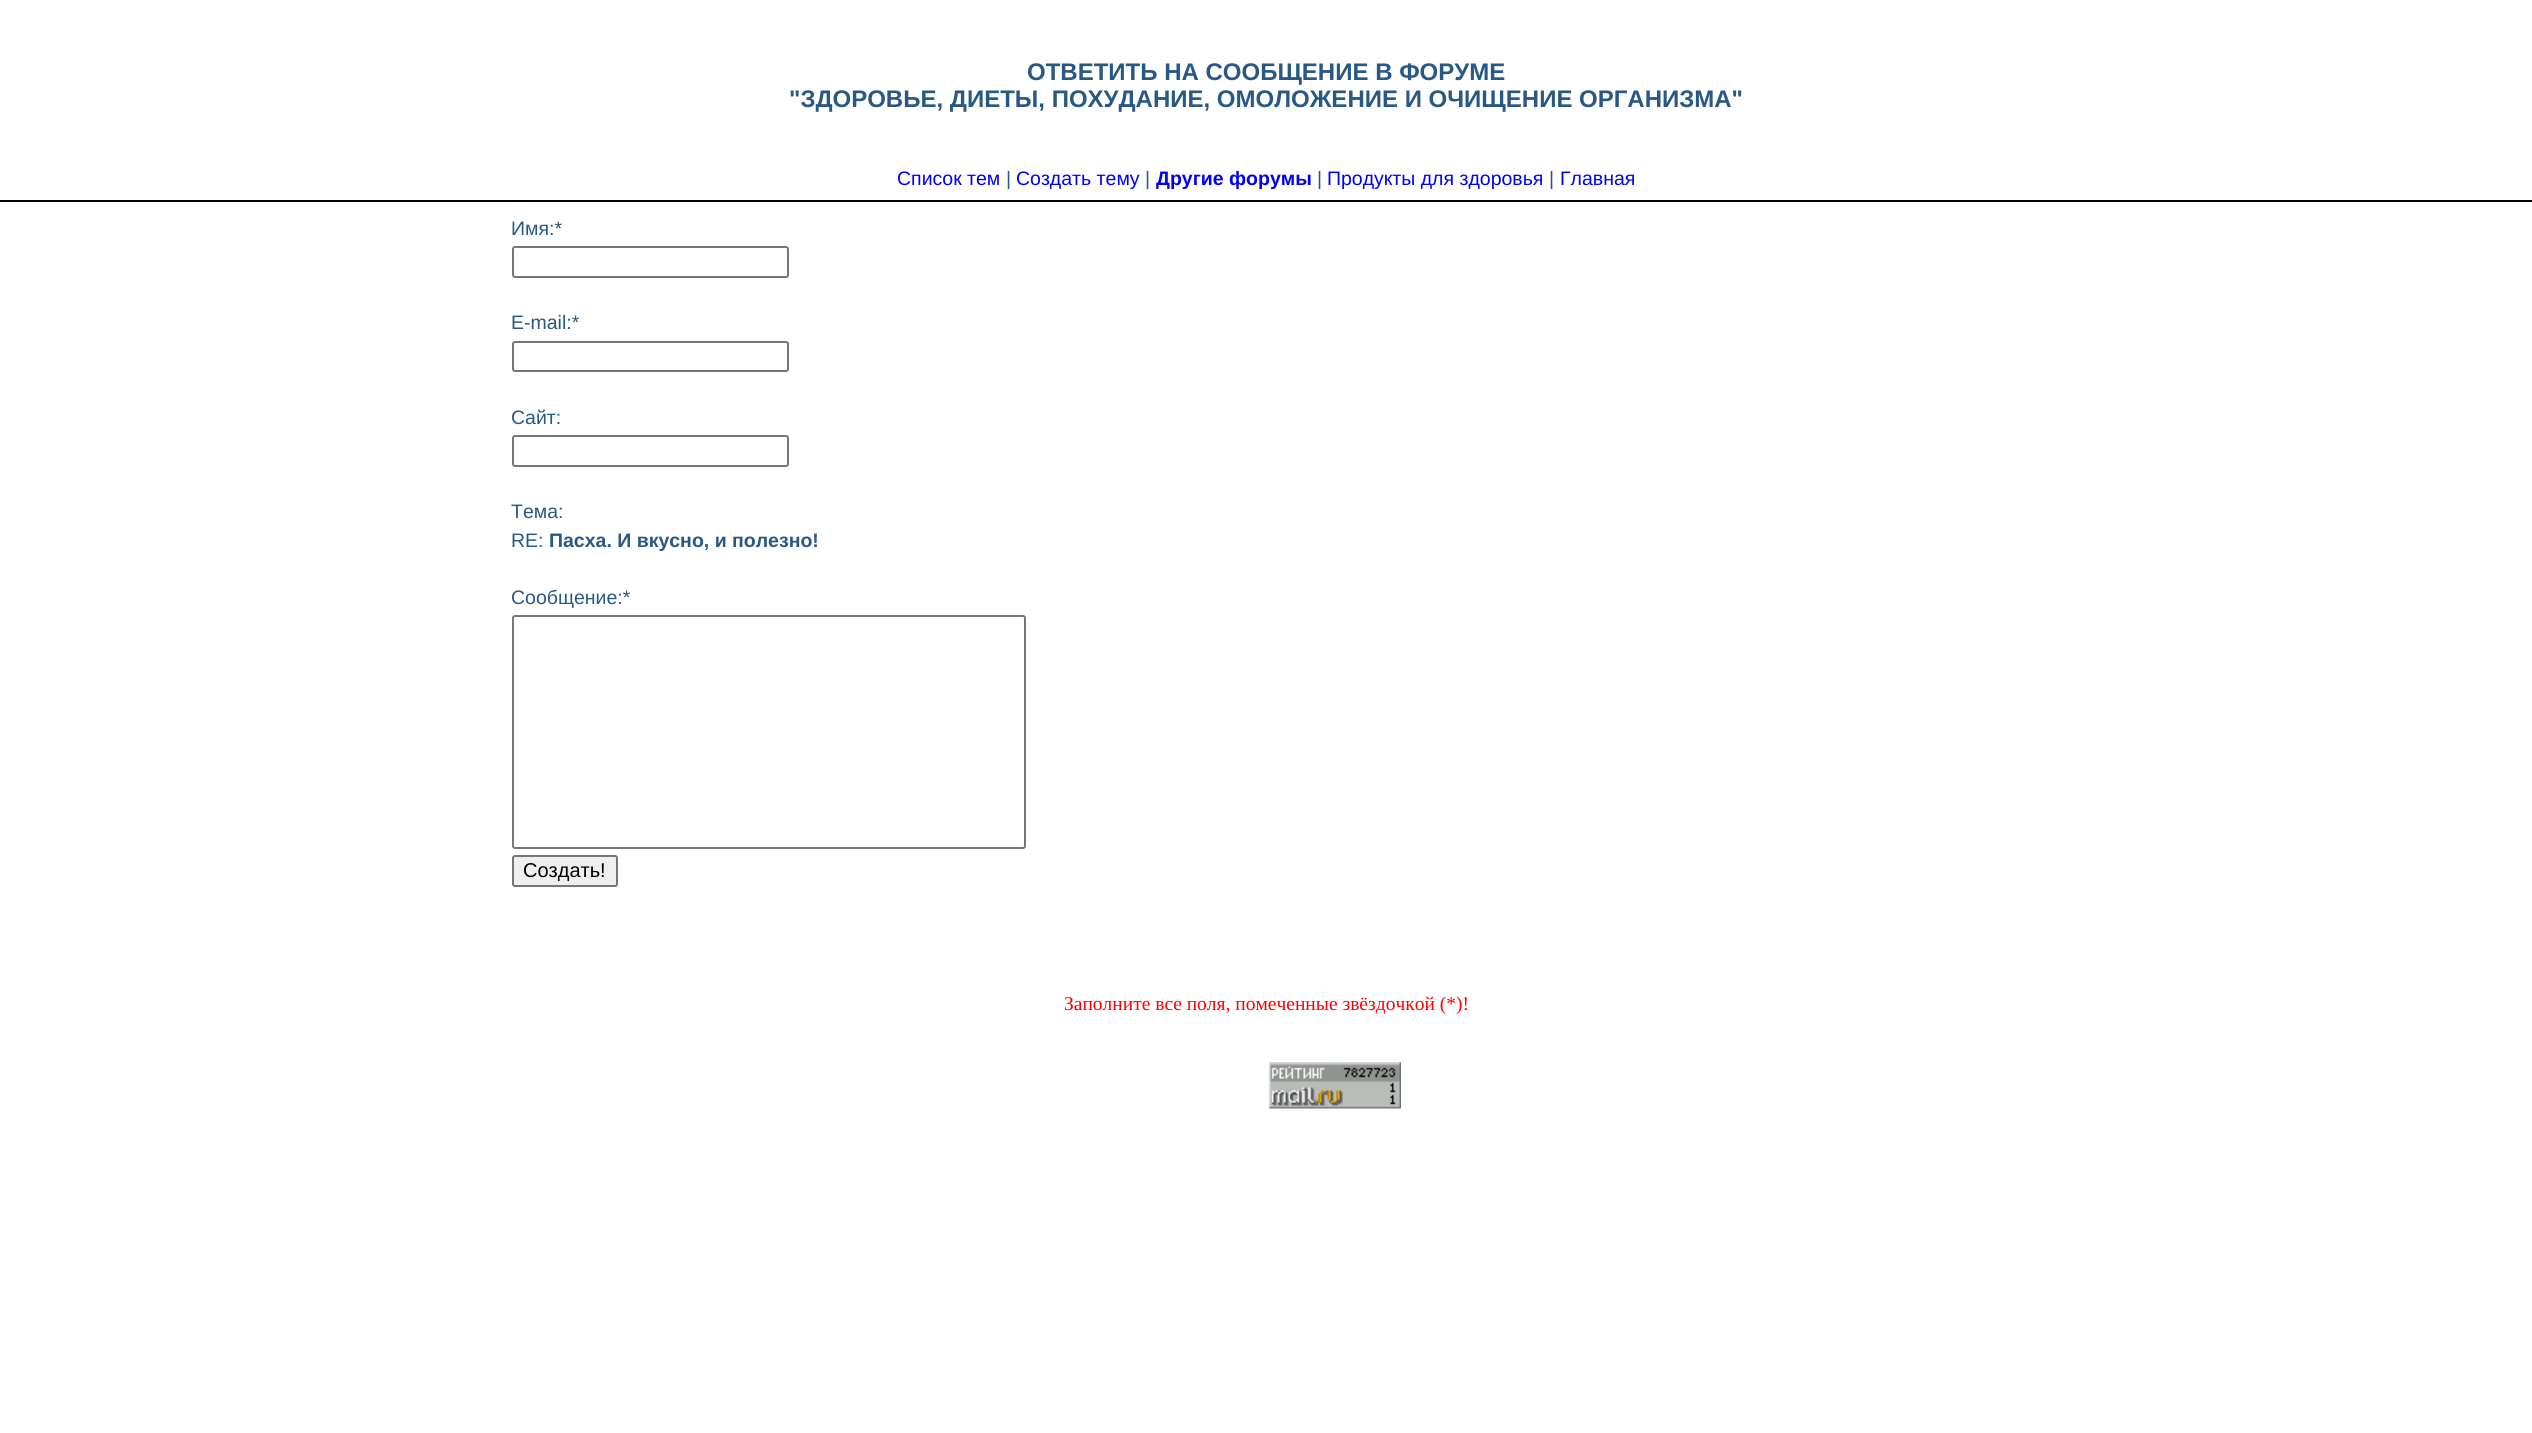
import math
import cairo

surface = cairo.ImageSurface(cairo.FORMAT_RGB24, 2532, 1433)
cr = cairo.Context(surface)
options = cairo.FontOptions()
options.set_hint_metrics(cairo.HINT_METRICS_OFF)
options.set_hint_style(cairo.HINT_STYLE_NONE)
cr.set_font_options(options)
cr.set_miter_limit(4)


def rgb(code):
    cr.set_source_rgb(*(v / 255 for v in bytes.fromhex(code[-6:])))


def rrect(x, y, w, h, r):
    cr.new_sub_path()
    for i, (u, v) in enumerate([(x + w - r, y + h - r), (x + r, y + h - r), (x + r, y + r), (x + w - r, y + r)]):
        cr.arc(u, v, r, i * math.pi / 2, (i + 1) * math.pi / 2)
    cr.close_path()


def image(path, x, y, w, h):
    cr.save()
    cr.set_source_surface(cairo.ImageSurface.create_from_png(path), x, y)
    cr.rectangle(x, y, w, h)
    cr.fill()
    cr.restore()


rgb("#ffffff")
cr.paint()
rgb("#000000")
cr.rectangle(0, 200, 2532, 2)
cr.fill()
rrect(513, 247, 275, 30, 2)
rgb("#767676")
cr.stroke()
rrect(513, 342, 275, 29, 2)
cr.stroke()
rrect(513, 436, 275, 30, 2)
cr.stroke()
rrect(513, 616, 512, 232, 2)
cr.stroke()
rgb("#efefef")
rrect(513, 856, 104, 30, 2)
cr.fill_preserve()
rgb("#767676")
cr.stroke()
image("img/1.png", 1269, 1062, 132, 47)
cr.select_font_face("Liberation Sans", cairo.FONT_SLANT_NORMAL, cairo.FONT_WEIGHT_BOLD)
cr.set_font_size(24)
rgb("#285884")
cr.move_to(1027, 80)
cr.show_text("ОТВЕТИТЬ НА СООБЩЕНИЕ В ФОРУМЕ")
cr.move_to(789, 107)
cr.show_text("\"ЗДОРОВЬЕ, ДИЕТЫ, ПОХУДАНИЕ, ОМОЛОЖЕНИЕ И ОЧИЩЕНИЕ ОРГАНИЗМА\"")
cr.select_font_face("Liberation Sans")
cr.set_font_size(19.5)
rgb("#0000ff")
cr.move_to(897, 185)
cr.show_text("Список тем")
rgb("#285884")
cr.move_to(1006, 185)
cr.show_text("|")
rgb("#0000ff")
cr.move_to(1016, 185)
cr.show_text("Создать тему")
rgb("#285884")
cr.move_to(1145, 185)
cr.show_text("|")
cr.select_font_face("Liberation Sans", cairo.FONT_SLANT_NORMAL, cairo.FONT_WEIGHT_BOLD)
rgb("#0000ff")
cr.move_to(1156, 185)
cr.show_text("Другие форумы")
cr.select_font_face("Liberation Sans")
rgb("#285884")
cr.move_to(1317, 185)
cr.show_text("|")
rgb("#0000ff")
cr.move_to(1327, 185)
cr.show_text("Продукты для здоровья")
rgb("#285884")
cr.move_to(1549, 185)
cr.show_text("|")
rgb("#0000ff")
cr.move_to(1560, 185)
cr.show_text("Главная")
rgb("#285884")
for x, y, s in [
    (511, 235, "Имя:*"),
    (511, 329, "E-mail:*"),
    (511, 424, "Сайт:"),
    (511, 518, "Тема:"),
    (511, 547, "RE:"),
]:
    cr.move_to(x, y)
    cr.show_text(s)
cr.select_font_face("Liberation Sans", cairo.FONT_SLANT_NORMAL, cairo.FONT_WEIGHT_BOLD)
cr.move_to(549, 547)
cr.show_text("Пасха. И вкусно, и полезно!")
cr.select_font_face("Liberation Sans")
cr.move_to(511, 604)
cr.show_text("Сообщение:*")
cr.set_font_size(20)
rgb("#000000")
cr.move_to(523, 877)
cr.show_text("Создать!")
cr.select_font_face("Liberation Serif")
cr.set_font_size(19.5)
rgb("#ff0000")
cr.move_to(1064, 1010)
cr.show_text("Заполните все поля, помеченные звёздочкой (*)!")
surface.write_to_png("page.png")
